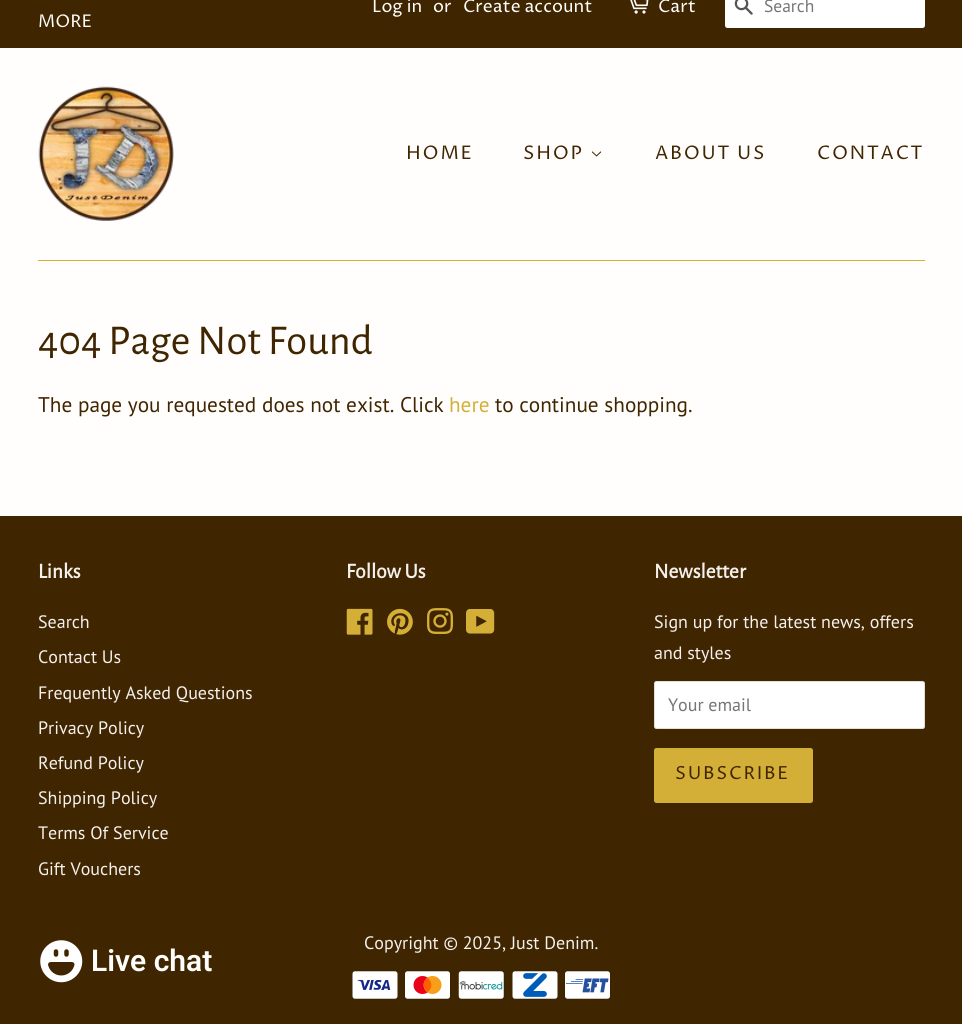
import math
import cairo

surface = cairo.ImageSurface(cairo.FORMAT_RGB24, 962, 1024)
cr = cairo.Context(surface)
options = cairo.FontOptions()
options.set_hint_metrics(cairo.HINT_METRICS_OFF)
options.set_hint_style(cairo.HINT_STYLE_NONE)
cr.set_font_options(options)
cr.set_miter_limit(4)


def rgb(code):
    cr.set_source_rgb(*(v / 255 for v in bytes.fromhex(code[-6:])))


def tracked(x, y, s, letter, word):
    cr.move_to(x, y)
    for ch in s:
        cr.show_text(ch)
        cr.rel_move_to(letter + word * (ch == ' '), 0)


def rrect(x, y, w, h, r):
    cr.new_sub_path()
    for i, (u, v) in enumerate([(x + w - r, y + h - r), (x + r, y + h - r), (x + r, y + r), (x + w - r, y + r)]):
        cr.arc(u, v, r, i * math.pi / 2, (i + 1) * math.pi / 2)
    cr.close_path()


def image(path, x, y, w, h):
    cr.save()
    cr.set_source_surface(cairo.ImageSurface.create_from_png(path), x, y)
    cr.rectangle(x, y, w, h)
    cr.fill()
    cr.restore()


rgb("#fffefc")
cr.paint()
rgb("#402501")
cr.rectangle(0, 0, 962, 48)
cr.fill()
image("img/1.png", 630, 0, 19, 14)
rgb("#ffffff")
rrect(725, -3, 200, 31, 2.5)
cr.fill()
image("img/2.png", 734, 0, 19, 15)
rgb("#d4af37")
cr.rectangle(38, 260, 887, 1)
cr.fill()
image("img/3.png", 38, 86, 136, 135)
image("img/4.png", 591, 151, 11, 6)
rgb("#402501")
cr.rectangle(0, 516, 962, 508)
cr.fill()
image("img/5.png", 346, 608, 27, 27)
image("img/6.png", 387, 608, 26, 27)
image("img/7.png", 427, 608, 26, 26)
image("img/8.png", 466, 609, 29, 25)
rgb("#ffffff")
rrect(654, 681, 271, 48, 2.5)
cr.fill()
rrect(654.5, 681.5, 270, 47, 2)
cr.set_source_rgba(0.251, 0.145, 0.004, 0.15)
cr.set_line_width(1)
cr.stroke()
rgb("#d4af37")
rrect(654, 748, 159, 55, 2.5)
cr.fill()
image("img/9.png", 352, 970, 46, 30)
image("img/10.png", 404, 970, 47, 30)
image("img/11.png", 458, 970, 47, 30)
image("img/12.png", 512, 970, 46, 30)
image("img/13.png", 564, 970, 47, 30)
image("img/14.png", 40, 940, 43, 43)
cr.select_font_face("Proza Libre")
cr.set_font_size(17.5)
rgb("#fffefc")
for x, y, s in [
    (372, 12, "Log in"),
    (433, 12, "or"),
    (463, 12, "Create account"),
    (658, 12, "Cart"),
]:
    cr.move_to(x, y)
    cr.show_text(s)
cr.select_font_face("PT Sans")
rgb("#757575")
cr.move_to(764, 12)
cr.show_text("Search")
cr.select_font_face("Proza Libre")
rgb("#fffefc")
cr.move_to(38, 27)
cr.show_text("MORE")
cr.set_font_size(18.75)
rgb("#402501")
for x, y, s in [
    (406, 159, "HOME"),
    (523, 159, "SHOP"),
    (655, 159, "ABOUT US"),
    (817, 159, "CONTACT"),
]:
    tracked(x, y, s, 1.75, 0)
cr.select_font_face("Alegreya Sans")
cr.set_font_size(42.5)
cr.move_to(38, 354)
cr.show_text("404 Page Not Found")
cr.select_font_face("PT Sans")
cr.set_font_size(21.25)
cr.move_to(38, 412)
cr.show_text("The page you requested does not exist. Click")
rgb("#d4af37")
cr.move_to(449, 412)
cr.show_text("here")
rgb("#402501")
cr.move_to(495, 412)
cr.show_text("to continue shopping.")
cr.select_font_face("Alegreya Sans", cairo.FONT_SLANT_NORMAL, cairo.FONT_WEIGHT_BOLD)
rgb("#f4f0ed")
cr.move_to(38, 578)
cr.show_text("Links")
cr.select_font_face("PT Sans")
cr.set_font_size(18)
for x, y, s in [
    (38, 628, "Search"),
    (38, 663, "Contact Us"),
    (38, 699, "Frequently Asked Questions"),
    (38, 734, "Privacy Policy"),
    (38, 769, "Refund Policy"),
    (38, 804, "Shipping Policy"),
    (38, 839, "Terms Of Service"),
    (38, 875, "Gift Vouchers"),
]:
    cr.move_to(x, y)
    cr.show_text(s)
cr.select_font_face("Alegreya Sans", cairo.FONT_SLANT_NORMAL, cairo.FONT_WEIGHT_BOLD)
cr.set_font_size(21.25)
cr.move_to(346, 578)
cr.show_text("Follow Us")
cr.move_to(654, 578)
cr.show_text("Newsletter")
cr.select_font_face("PT Sans")
cr.set_font_size(18)
cr.move_to(654, 628)
cr.show_text("Sign up for the latest news, offers")
cr.move_to(654, 659)
cr.show_text("and styles")
rgb("#757575")
cr.move_to(668, 711)
cr.show_text("Your email")
cr.select_font_face("Proza Libre")
rgb("#402501")
tracked(675, 779, "SUBSCRIBE", 1.75, 0)
cr.select_font_face("PT Sans")
rgb("#f4f0ed")
cr.move_to(364, 949)
cr.show_text("Copyright © 2025, Just Denim.")
cr.select_font_face("Roboto SemiBold")
cr.set_font_size(30)
rgb("#fffefc")
cr.move_to(91, 971)
cr.show_text("Live chat")
surface.write_to_png("page.png")
